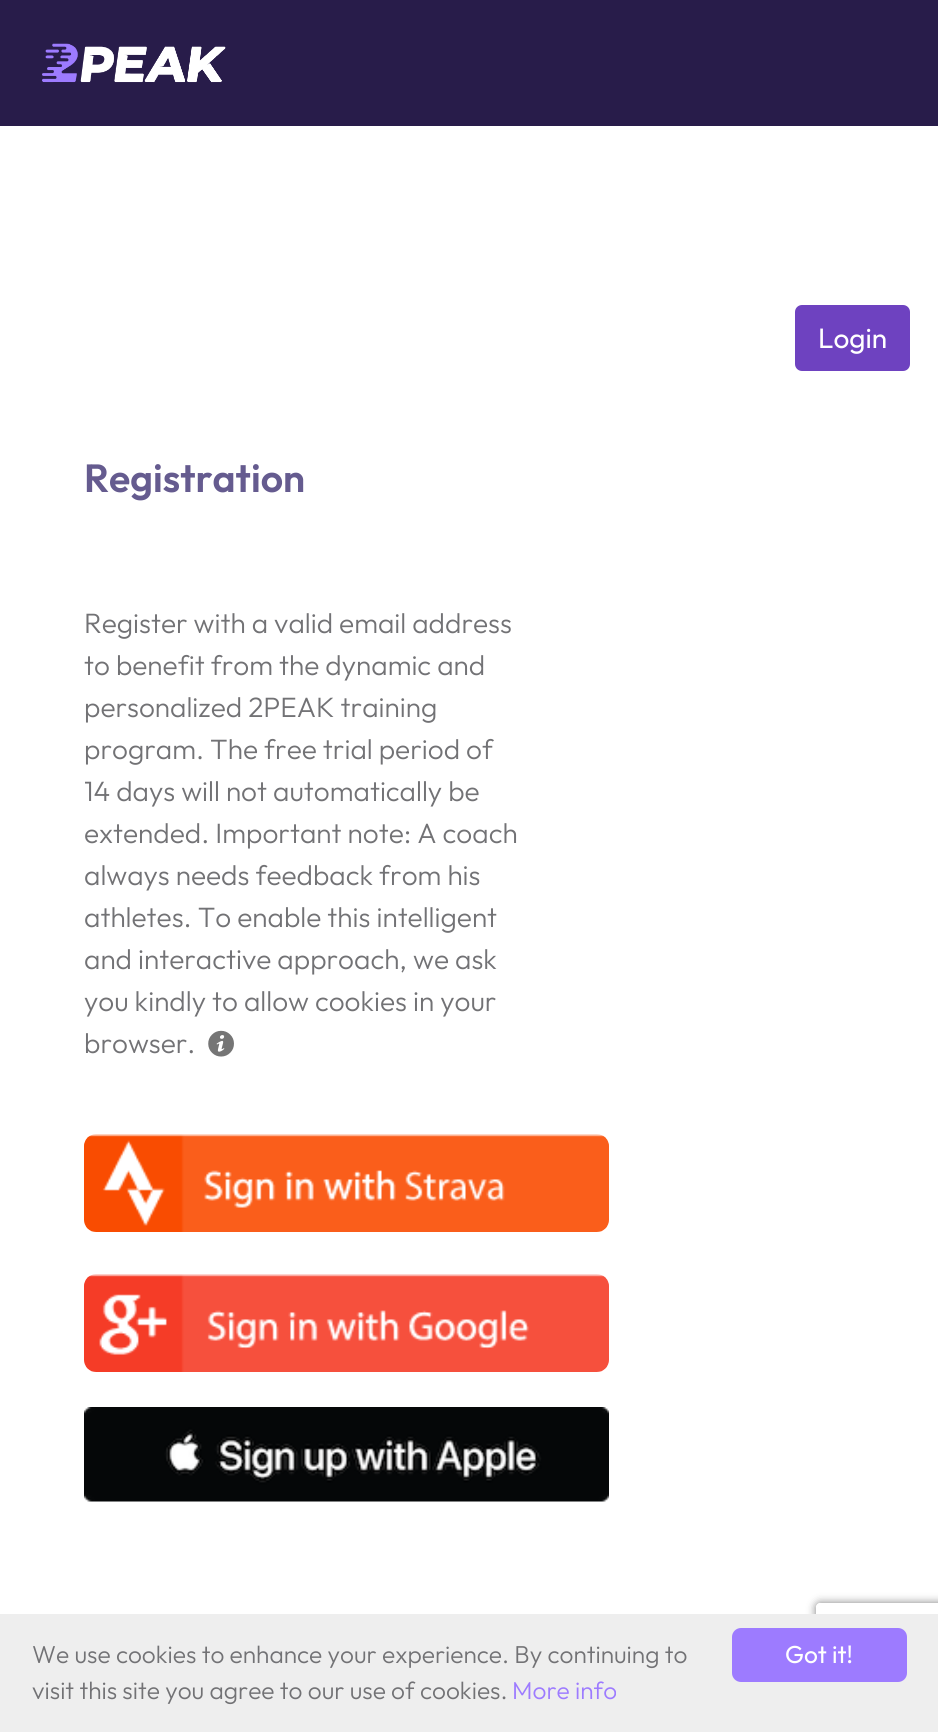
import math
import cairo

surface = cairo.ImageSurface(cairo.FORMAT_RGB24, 938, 1732)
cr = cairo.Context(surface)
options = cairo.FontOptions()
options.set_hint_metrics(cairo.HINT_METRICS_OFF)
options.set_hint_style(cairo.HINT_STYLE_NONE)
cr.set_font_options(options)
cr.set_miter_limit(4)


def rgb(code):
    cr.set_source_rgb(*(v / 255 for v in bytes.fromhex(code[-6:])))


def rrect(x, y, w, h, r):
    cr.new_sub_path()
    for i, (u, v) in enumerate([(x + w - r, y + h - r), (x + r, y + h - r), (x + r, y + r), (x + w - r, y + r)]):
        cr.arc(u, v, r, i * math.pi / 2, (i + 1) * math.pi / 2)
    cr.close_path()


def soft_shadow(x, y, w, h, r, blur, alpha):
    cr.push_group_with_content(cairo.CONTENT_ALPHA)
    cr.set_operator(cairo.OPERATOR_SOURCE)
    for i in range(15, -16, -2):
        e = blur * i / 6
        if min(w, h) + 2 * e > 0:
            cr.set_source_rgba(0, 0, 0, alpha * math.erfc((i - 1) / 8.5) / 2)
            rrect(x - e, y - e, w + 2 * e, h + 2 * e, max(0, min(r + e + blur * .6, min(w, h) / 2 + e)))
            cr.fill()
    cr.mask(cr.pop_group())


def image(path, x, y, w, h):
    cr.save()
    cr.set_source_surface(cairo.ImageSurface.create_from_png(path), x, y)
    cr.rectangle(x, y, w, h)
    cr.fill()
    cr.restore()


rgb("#ffffff")
cr.paint()
rgb("#281c4a")
cr.rectangle(0, 0, 938, 126)
cr.fill()
image("img/1.png", 42, 43, 184, 40)
rgb("#6e42c0")
rrect(796, 306, 113, 64, 6)
cr.fill_preserve()
cr.stroke()
image("img/2.png", 208, 1030, 26, 27)
image("img/3.png", 84, 1134, 525, 98)
image("img/4.png", 84, 1274, 525, 98)
image("img/5.png", 84, 1407, 525, 95)
cr.save()
cr.set_fill_rule(cairo.FILL_RULE_EVEN_ODD)
cr.new_path()
cr.move_to(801, 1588)
cr.line_to(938, 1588)
cr.line_to(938, 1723)
cr.line_to(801, 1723)
cr.close_path()
cr.move_to(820, 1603)
cr.line_to(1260, 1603)
cr.curve_to(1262, 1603, 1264, 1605, 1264, 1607)
cr.line_to(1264, 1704)
cr.curve_to(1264, 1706, 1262, 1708, 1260, 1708)
cr.line_to(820, 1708)
cr.curve_to(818, 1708, 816, 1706, 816, 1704)
cr.line_to(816, 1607)
cr.curve_to(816, 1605, 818, 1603, 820, 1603)
cr.close_path()
cr.clip()
rgb("#808080")
soft_shadow(816, 1603, 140, 105, 4, 4.5, 1)
cr.restore()
rgb("#eeeeee")
cr.rectangle(0, 1614, 938, 118)
cr.fill()
rgb("#9d7bff")
rrect(732, 1628, 175, 54, 9)
cr.fill()
cr.select_font_face("Outfit")
cr.set_font_size(28)
rgb("#ffffff")
cr.move_to(818, 348)
cr.show_text("Login")
cr.select_font_face("Outfit SemiBold")
cr.set_font_size(39.25)
rgb("#655b8f")
cr.move_to(84, 492)
cr.show_text("Registration")
cr.select_font_face("Outfit Light")
cr.set_font_size(28)
rgb("#727275")
for x, y, s in [
    (84, 633, "Register with a valid email address"),
    (84, 675, "to benefit from the dynamic and"),
    (84, 717, "personalized 2PEAK training"),
    (84, 759, "program. The free trial period of"),
    (84, 801, "14 days will not automatically be"),
    (84, 843, "extended. Important note: A coach"),
    (84, 885, "always needs feedback from his"),
    (84, 927, "athletes. To enable this intelligent"),
    (84, 969, "and interactive approach, we ask"),
    (84, 1011, "you kindly to allow cookies in your"),
    (84, 1053, "browser."),
]:
    cr.move_to(x, y)
    cr.show_text(s)
cr.set_font_size(24.5)
cr.move_to(32, 1663)
cr.show_text("We use cookies to enhance your experience. By continuing to")
cr.move_to(32, 1699)
cr.show_text("visit this site you agree to our use of cookies.")
rgb("#9d7bff")
cr.move_to(512, 1699)
cr.show_text("More info")
cr.select_font_face("Outfit")
rgb("#ffffff")
cr.move_to(785, 1663)
cr.show_text("Got it!")
surface.write_to_png("page.png")
